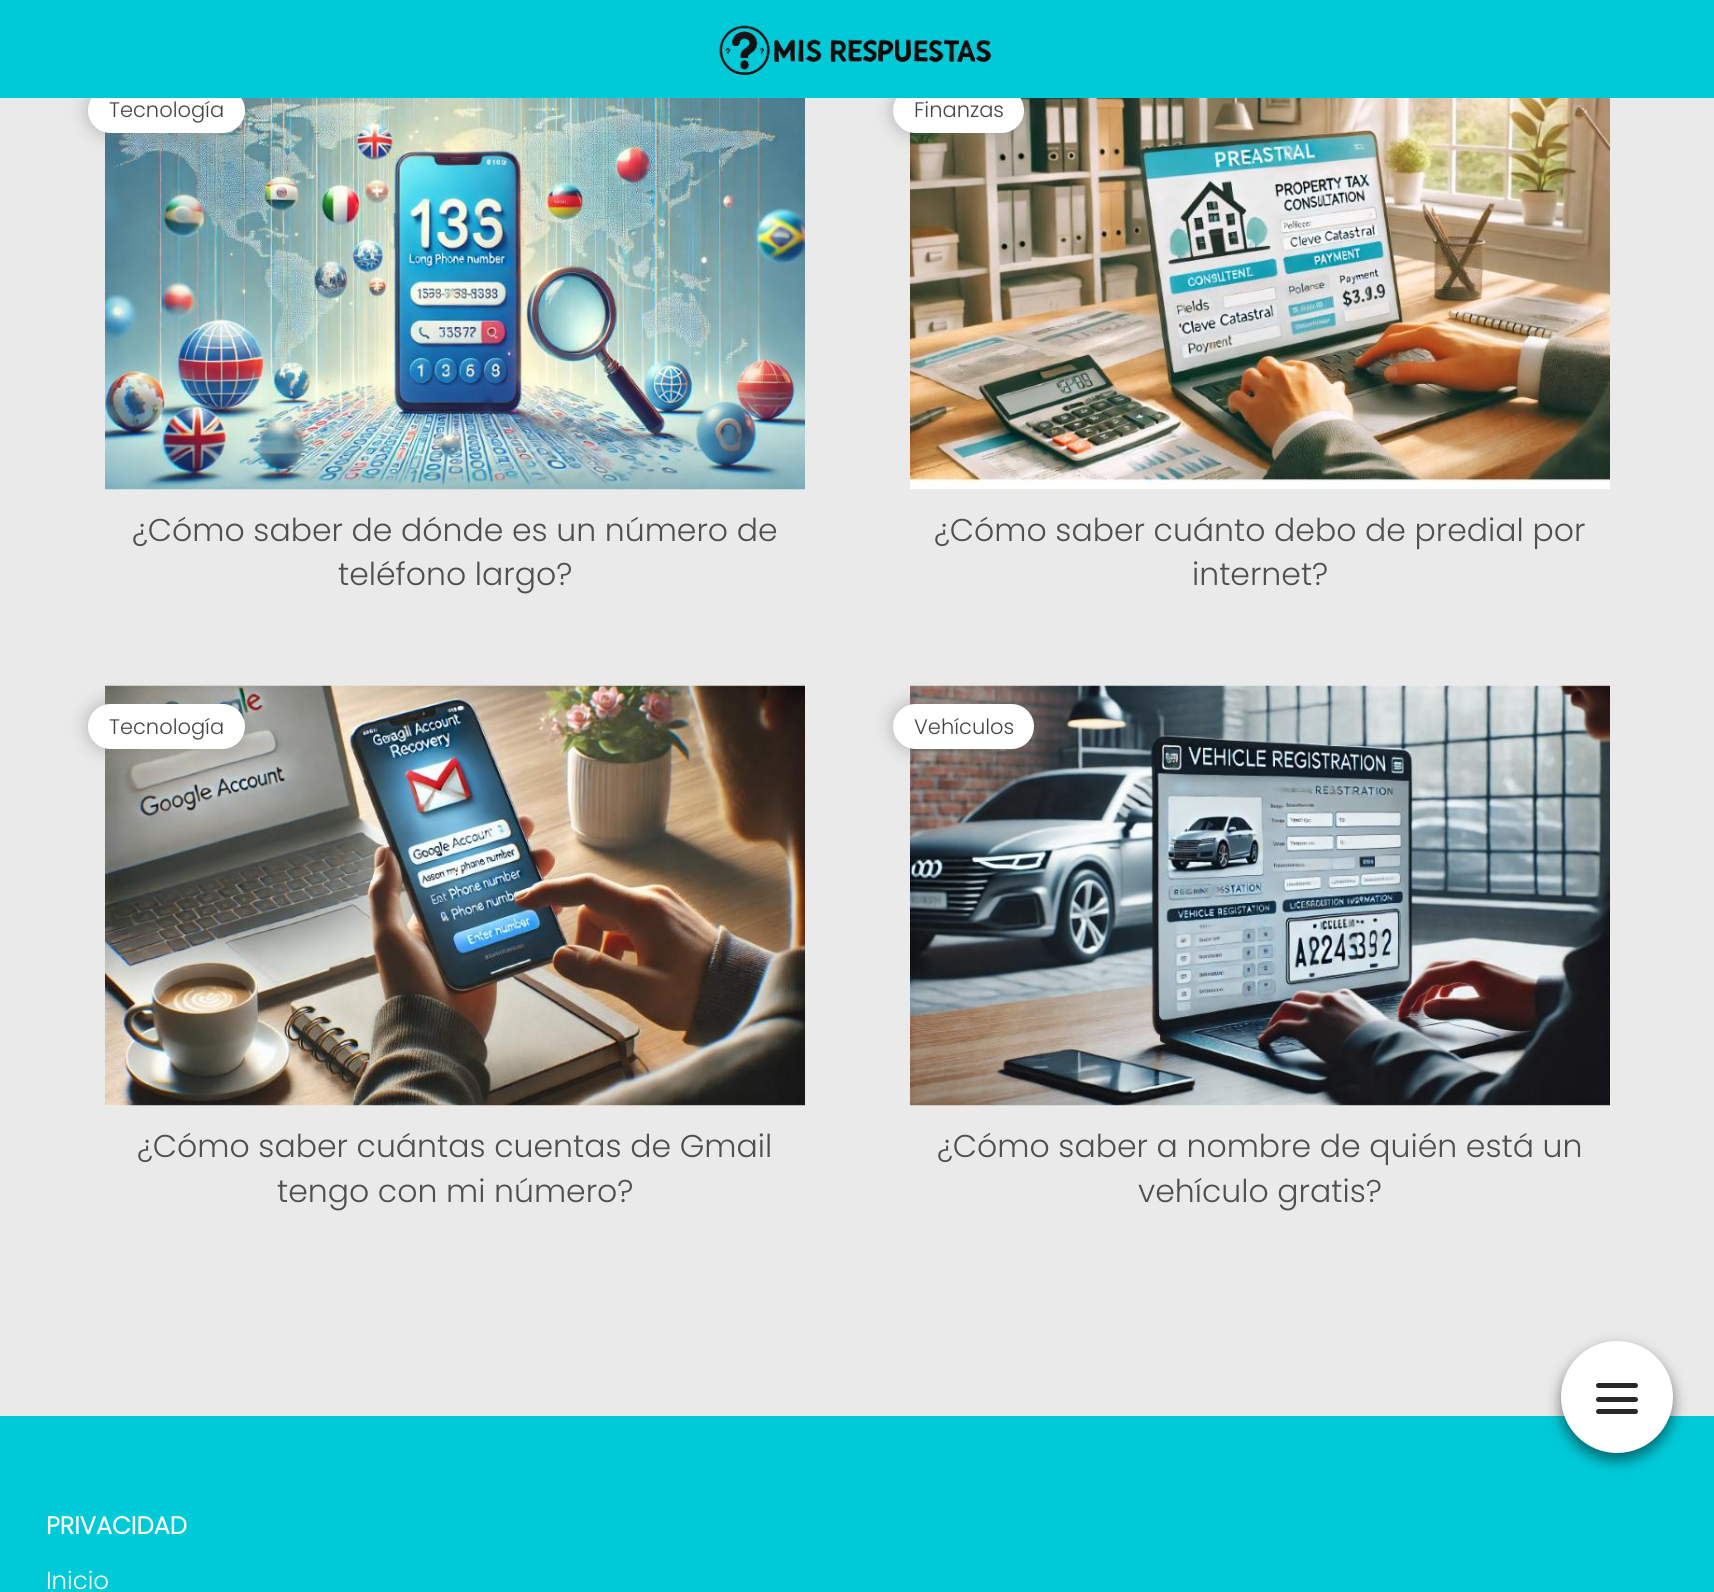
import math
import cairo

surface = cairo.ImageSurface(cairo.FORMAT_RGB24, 1714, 1592)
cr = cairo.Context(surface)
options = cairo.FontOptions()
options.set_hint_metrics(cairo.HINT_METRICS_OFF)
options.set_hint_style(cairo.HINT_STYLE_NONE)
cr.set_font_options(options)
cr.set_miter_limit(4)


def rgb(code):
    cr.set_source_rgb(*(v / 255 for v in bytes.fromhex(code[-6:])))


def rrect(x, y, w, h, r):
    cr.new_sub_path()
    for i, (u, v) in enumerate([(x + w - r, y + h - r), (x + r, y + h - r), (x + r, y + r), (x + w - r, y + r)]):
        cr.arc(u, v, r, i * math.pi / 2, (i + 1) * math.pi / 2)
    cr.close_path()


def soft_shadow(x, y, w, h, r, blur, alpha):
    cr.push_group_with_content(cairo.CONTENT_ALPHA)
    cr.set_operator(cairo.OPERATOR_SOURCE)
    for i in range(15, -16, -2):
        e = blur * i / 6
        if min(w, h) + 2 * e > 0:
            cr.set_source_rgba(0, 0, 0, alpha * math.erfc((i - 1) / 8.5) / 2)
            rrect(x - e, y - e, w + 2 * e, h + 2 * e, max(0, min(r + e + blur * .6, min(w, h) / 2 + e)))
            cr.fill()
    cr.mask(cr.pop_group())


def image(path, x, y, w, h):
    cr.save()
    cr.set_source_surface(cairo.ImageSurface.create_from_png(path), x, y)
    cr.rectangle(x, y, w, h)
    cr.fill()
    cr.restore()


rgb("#eaeaea")
cr.paint()
image("img/2.png", 105, 98, 700, 392)
rgb("#777777")
soft_shadow(88, 88, 157, 45, 22.5, 9, 0.48)
rgb("#ffffff")
rrect(88, 88, 157, 45, 22.5)
cr.fill()
image("img/3.png", 910, 98, 700, 392)
rgb("#777777")
soft_shadow(893, 88, 131, 45, 22.5, 9, 0.48)
rgb("#ffffff")
rrect(893, 88, 131, 45, 22.5)
cr.fill()
rgb("#00cad8")
cr.rectangle(0, 0, 1714, 98)
cr.fill()
image("img/1.png", 719, 25, 273, 51)
cr.rectangle(0, 1416, 1714, 176)
cr.fill()
rgb("#000000")
soft_shadow(1561, 1348, 112, 112, 56, 7, 0.5)
rgb("#ffffff")
cr.arc(1617, 1397, 56, 0, 2 * math.pi)
cr.fill()
rgb("#282828")
rrect(1596, 1383, 42, 5, 2.5)
cr.fill()
rrect(1596, 1397, 42, 5, 2.5)
cr.fill()
rrect(1596, 1409, 42, 5, 2.5)
cr.fill()
image("img/4.png", 105, 685, 700, 421)
rgb("#777777")
soft_shadow(88, 704, 157, 45, 22.5, 9, 0.48)
rgb("#ffffff")
rrect(88, 704, 157, 45, 22.5)
cr.fill()
image("img/5.png", 910, 685, 700, 421)
rgb("#777777")
soft_shadow(893, 704, 141, 45, 22.5, 9, 0.48)
rgb("#ffffff")
rrect(893, 704, 141, 45, 22.5)
cr.fill()
cr.select_font_face("Poppins Light")
cr.set_font_size(21)
rgb("#444444")
cr.move_to(109, 117)
cr.show_text("Tecnología")
cr.set_font_size(31.5)
rgb("#4f4f4f")
cr.move_to(132, 541)
cr.show_text("¿Cómo saber de dónde es un número de")
cr.move_to(338, 585)
cr.show_text("teléfono largo?")
cr.set_font_size(21)
rgb("#444444")
cr.move_to(914, 117)
cr.show_text("Finanzas")
cr.set_font_size(31.5)
rgb("#4f4f4f")
cr.move_to(934, 541)
cr.show_text("¿Cómo saber cuánto debo de predial por")
cr.move_to(1192, 585)
cr.show_text("internet?")
cr.set_font_size(21)
rgb("#444444")
cr.move_to(109, 734)
cr.show_text("Tecnología")
cr.set_font_size(31.5)
rgb("#4f4f4f")
cr.move_to(137, 1157)
cr.show_text("¿Cómo saber cuántas cuentas de Gmail")
cr.move_to(277, 1202)
cr.show_text("tengo con mi número?")
cr.set_font_size(21)
rgb("#444444")
cr.move_to(914, 734)
cr.show_text("Vehículos")
cr.set_font_size(31.5)
rgb("#4f4f4f")
cr.move_to(937, 1157)
cr.show_text("¿Cómo saber a nombre de quién está un")
cr.move_to(1138, 1202)
cr.show_text("vehículo gratis?")
cr.select_font_face("Poppins", cairo.FONT_SLANT_NORMAL, cairo.FONT_WEIGHT_BOLD)
cr.set_font_size(24.5)
rgb("#ffffff")
cr.move_to(46, 1534)
cr.show_text("PRIVACIDAD")
cr.select_font_face("Poppins Light")
cr.move_to(46, 1589)
cr.show_text("Inicio")
surface.write_to_png("page.png")
